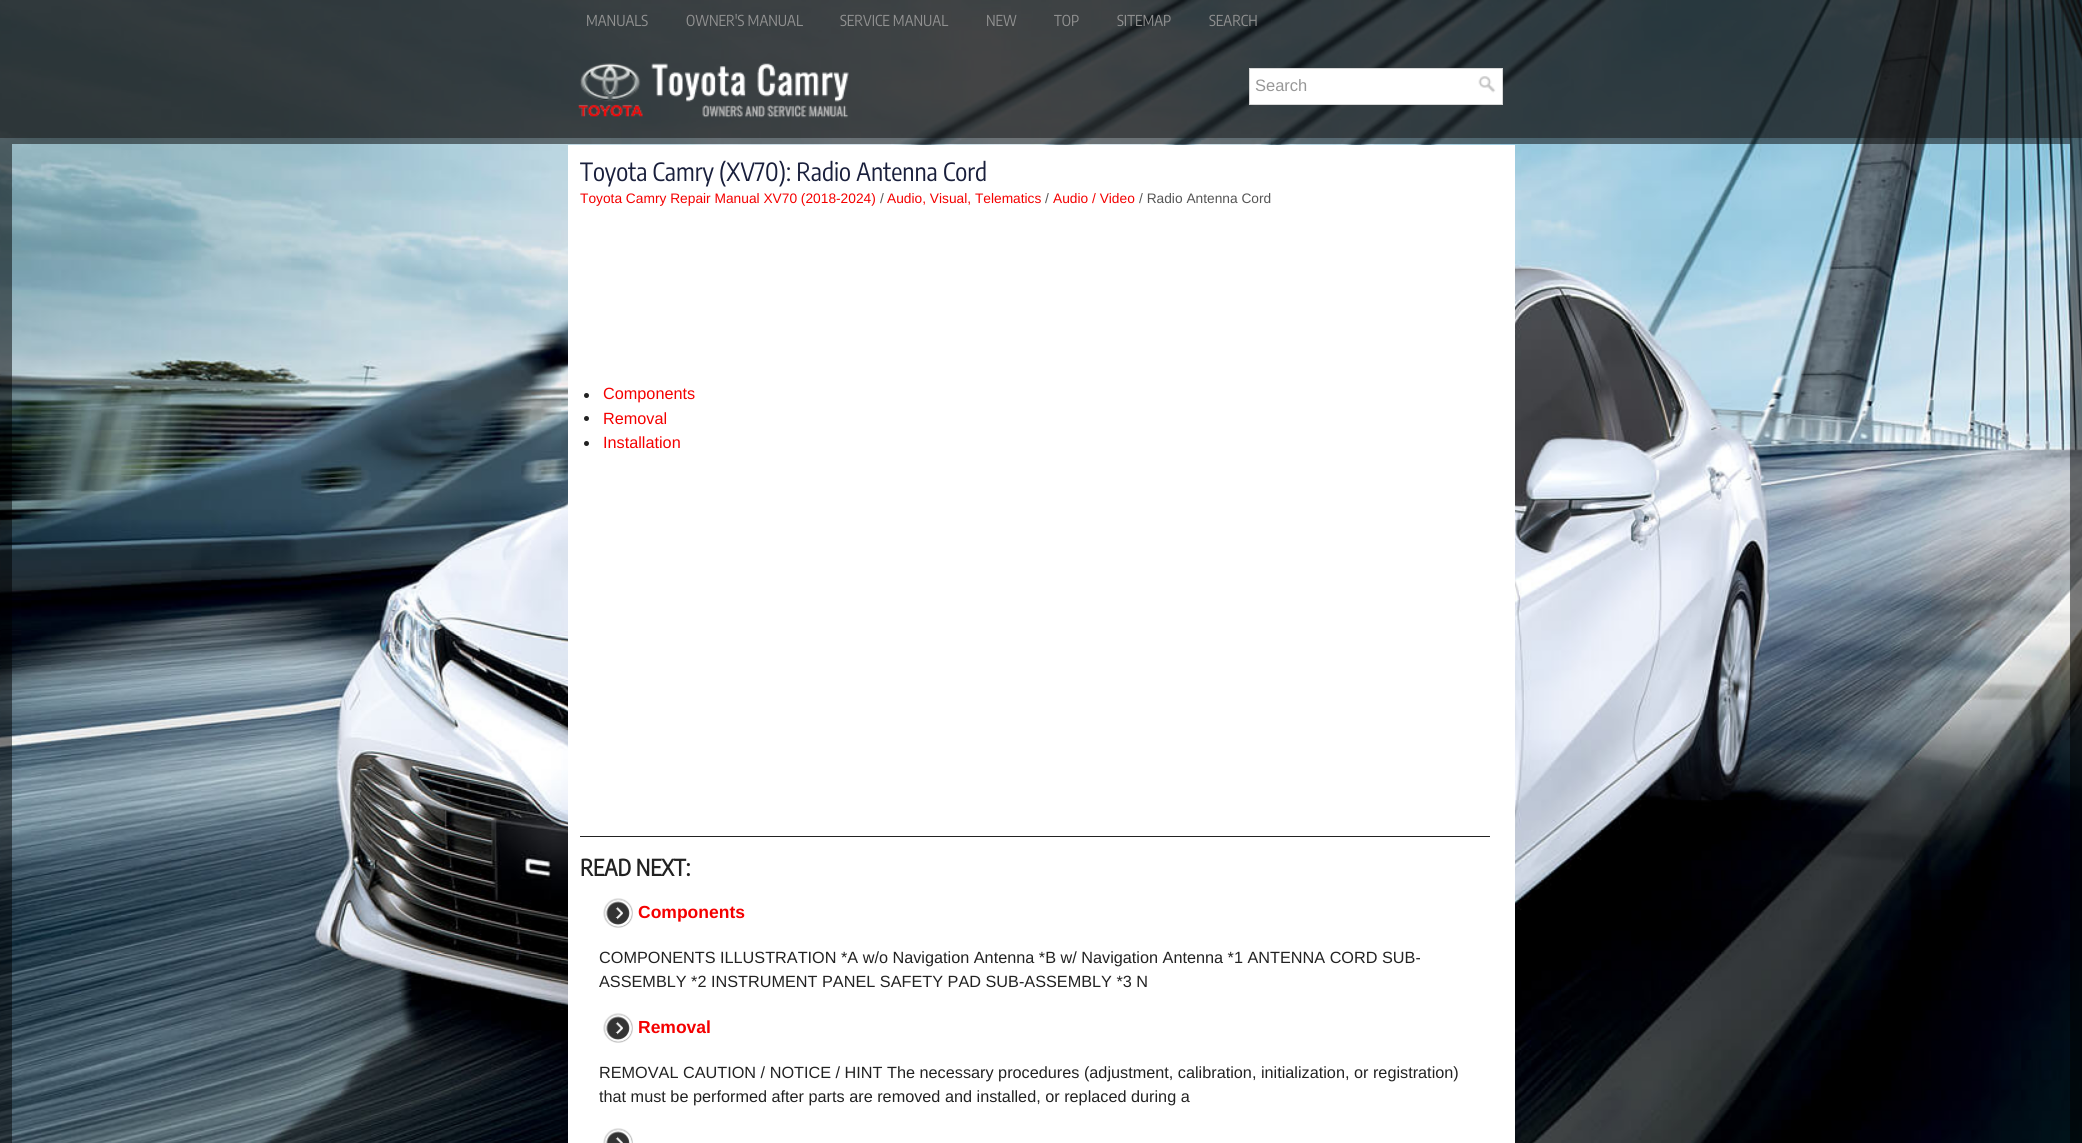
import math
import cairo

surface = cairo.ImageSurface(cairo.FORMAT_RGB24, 2082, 1143)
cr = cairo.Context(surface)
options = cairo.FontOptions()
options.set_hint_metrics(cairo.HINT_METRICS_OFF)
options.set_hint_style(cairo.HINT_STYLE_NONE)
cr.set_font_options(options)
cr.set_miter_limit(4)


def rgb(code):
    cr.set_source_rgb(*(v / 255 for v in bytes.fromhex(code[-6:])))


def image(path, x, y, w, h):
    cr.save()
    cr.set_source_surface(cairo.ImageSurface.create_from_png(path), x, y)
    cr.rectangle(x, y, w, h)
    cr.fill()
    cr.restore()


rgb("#ffffff")
cr.paint()
image("img/1.png", 0, 0, 2082, 1143)
cr.set_source_rgba(0.149, 0.149, 0.149, 0.5)
cr.rectangle(0, 0, 2082, 138)
cr.fill()
cr.set_source_rgba(0, 0, 0, 0.5)
cr.set_fill_rule(cairo.FILL_RULE_EVEN_ODD)
cr.new_path()
cr.move_to(-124, -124)
cr.line_to(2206, -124)
cr.line_to(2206, 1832)
cr.line_to(-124, 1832)
cr.close_path()
cr.move_to(12, 144)
cr.line_to(2070, 144)
cr.line_to(2070, 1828)
cr.line_to(12, 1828)
cr.close_path()
cr.fill()
image("img/2.png", 578, 63, 271, 55)
rgb("#ffffff")
cr.rectangle(1249.5, 68.5, 253, 36)
cr.fill_preserve()
rgb("#d8d8d8")
cr.set_line_width(1)
cr.stroke()
image("img/3.png", 1478, 76, 18, 17)
rgb("#ffffff")
cr.rectangle(568, 145, 947, 998)
cr.fill()
rgb("#222222")
cr.arc(586.5, 395.5, 2.5, 0, 2 * math.pi)
cr.fill()
cr.arc(586.5, 418.5, 2.5, 0, 2 * math.pi)
cr.fill()
cr.arc(586.5, 443.5, 2.5, 0, 2 * math.pi)
cr.fill()
cr.rectangle(580, 836, 910, 1)
cr.fill()
image("img/4.png", 603, 898, 30, 30)
image("img/4.png", 603, 1013, 30, 30)
image("img/5.png", 603, 1128, 30, 15)
cr.select_font_face("Encode Sans Condensed")
cr.set_font_size(15)
rgb("#919191")
for x, y, s in [
    (586, 26, "MANUALS"),
    (686, 26, "OWNER'S MANUAL"),
    (840, 26, "SERVICE MANUAL"),
    (986, 26, "NEW"),
    (1054, 26, "TOP"),
    (1117, 26, "SITEMAP"),
    (1209, 26, "SEARCH"),
]:
    cr.move_to(x, y)
    cr.show_text(s)
cr.select_font_face("Liberation Sans")
cr.set_font_size(16.5)
rgb("#979797")
cr.move_to(1255, 91)
cr.show_text("Search")
cr.select_font_face("Encode Sans Condensed")
cr.set_font_size(25)
rgb("#191f3c")
cr.move_to(580, 181)
cr.show_text("Toyota Camry (XV70): Radio Antenna Cord")
cr.select_font_face("Liberation Sans")
cr.set_font_size(13.75)
rgb("#f40000")
cr.move_to(580, 203)
cr.show_text("Toyota Camry Repair Manual XV70 (2018-2024)")
rgb("#555555")
cr.move_to(880, 203)
cr.show_text("/")
rgb("#f40000")
cr.move_to(887, 203)
cr.show_text("Audio, Visual, Telematics")
rgb("#555555")
cr.move_to(1045, 203)
cr.show_text("/")
rgb("#f40000")
cr.move_to(1053, 203)
cr.show_text("Audio / Video")
rgb("#555555")
cr.move_to(1139, 203)
cr.show_text("/ Radio Antenna Cord")
cr.set_font_size(16.25)
rgb("#f40000")
for x, y, s in [
    (603, 399, "Components"),
    (603, 424, "Removal"),
    (603, 448, "Installation"),
]:
    cr.move_to(x, y)
    cr.show_text(s)
cr.select_font_face("Encode Sans Condensed", cairo.FONT_SLANT_NORMAL, cairo.FONT_WEIGHT_BOLD)
cr.set_font_size(22.5)
rgb("#222222")
cr.move_to(580, 876)
cr.show_text("READ NEXT:")
cr.select_font_face("Liberation Sans", cairo.FONT_SLANT_NORMAL, cairo.FONT_WEIGHT_BOLD)
cr.set_font_size(17.5)
rgb("#f40000")
cr.move_to(638, 918)
cr.show_text("Components")
cr.select_font_face("Liberation Sans")
cr.set_font_size(16.25)
rgb("#222222")
cr.move_to(599, 963)
cr.show_text("COMPONENTS ILLUSTRATION *A w/o Navigation Antenna *B w/ Navigation Antenna *1 ANTENNA CORD SUB-")
cr.move_to(599, 987)
cr.show_text("ASSEMBLY *2 INSTRUMENT PANEL SAFETY PAD SUB-ASSEMBLY *3 N")
cr.select_font_face("Liberation Sans", cairo.FONT_SLANT_NORMAL, cairo.FONT_WEIGHT_BOLD)
cr.set_font_size(17.5)
rgb("#f40000")
cr.move_to(638, 1033)
cr.show_text("Removal")
cr.select_font_face("Liberation Sans")
cr.set_font_size(16.25)
rgb("#222222")
cr.move_to(599, 1078)
cr.show_text("REMOVAL CAUTION / NOTICE / HINT The necessary procedures (adjustment, calibration, initialization, or registration)")
cr.move_to(599, 1102)
cr.show_text("that must be performed after parts are removed and installed, or replaced during a")
surface.write_to_png("page.png")
